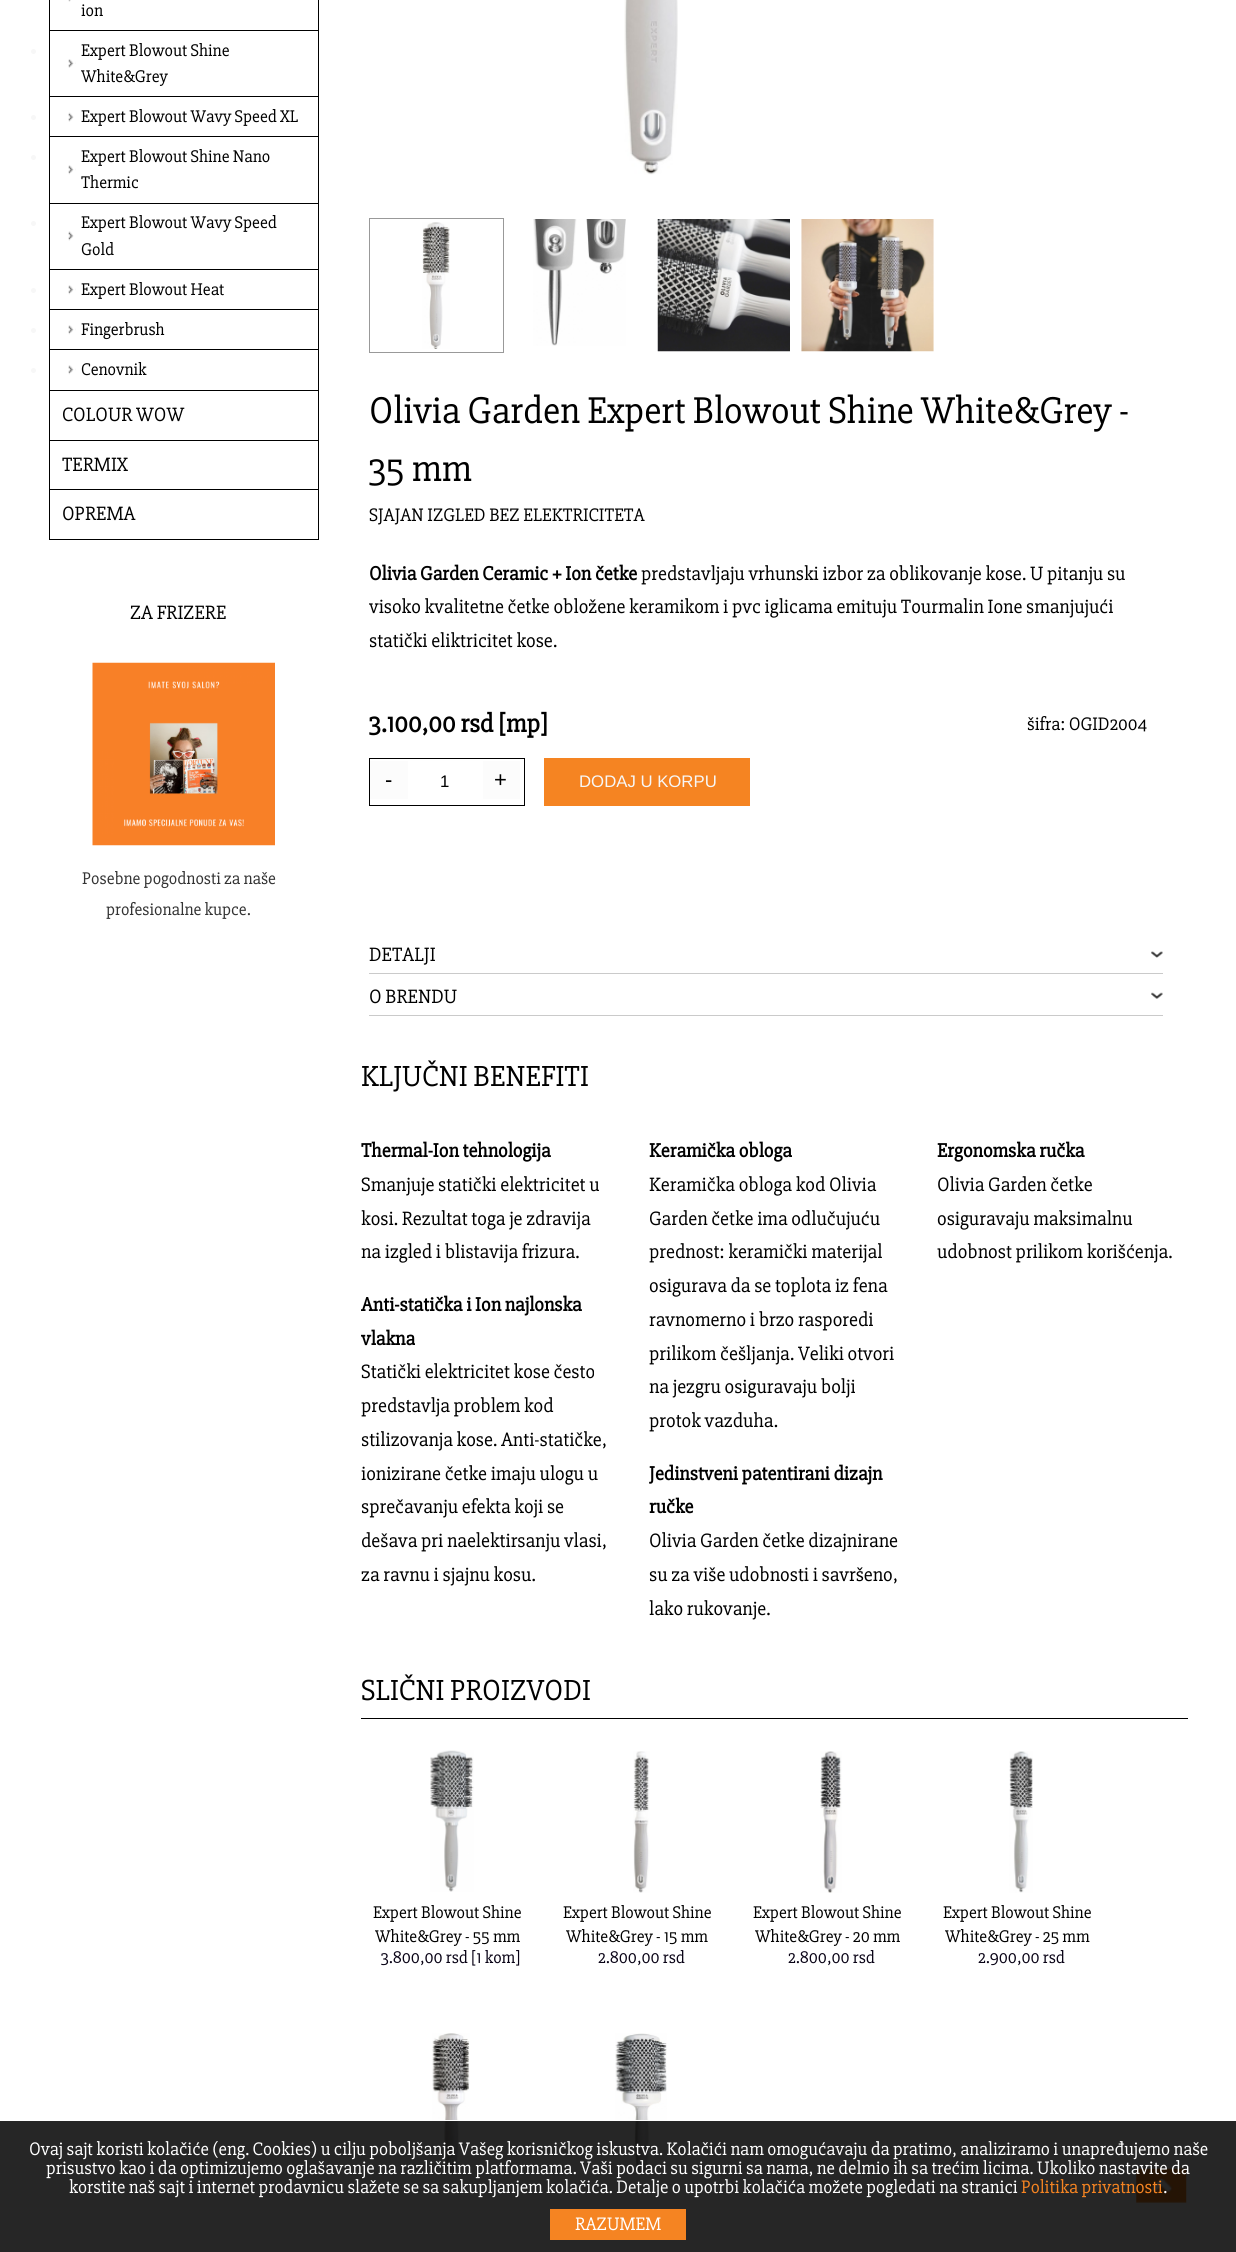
import math
import cairo

surface = cairo.ImageSurface(cairo.FORMAT_RGB24, 1236, 2252)
cr = cairo.Context(surface)
options = cairo.FontOptions()
options.set_hint_metrics(cairo.HINT_METRICS_OFF)
options.set_hint_style(cairo.HINT_STYLE_NONE)
cr.set_font_options(options)
cr.set_miter_limit(4)


def rgb(code):
    cr.set_source_rgb(*(v / 255 for v in bytes.fromhex(code[-6:])))


def image(path, x, y, w, h):
    cr.save()
    cr.set_source_surface(cairo.ImageSurface.create_from_png(path), x, y)
    cr.rectangle(x, y, w, h)
    cr.fill()
    cr.restore()


rgb("#ffffff")
cr.paint()
for x, y, w, h, color in [
    (318, 0, 1, 540, "#000000"),
    (49, 390, 270, 1, "#000000"),
    (49, 0, 1, 391, "#000000"),
    (50, 30, 268, 1, "#000000"),
]:
    rgb(color)
    cr.rectangle(x, y, w, h)
    cr.fill()
image("img/1.png", 68, 0, 3, 2)
cr.rectangle(50, 96, 268, 1)
cr.fill()
rgb("#f7f7f7")
cr.arc(33.5, 51.5, 2.5, 0, 2 * math.pi)
cr.fill()
image("img/2.png", 68, 59, 8, 9)
rgb("#000000")
cr.rectangle(50, 136, 268, 1)
cr.fill()
rgb("#f7f7f7")
cr.arc(33.5, 117.5, 2.5, 0, 2 * math.pi)
cr.fill()
image("img/3.png", 68, 112, 6, 10)
rgb("#000000")
cr.rectangle(50, 203, 268, 1)
cr.fill()
rgb("#f7f7f7")
cr.arc(33.5, 157.5, 2.5, 0, 2 * math.pi)
cr.fill()
image("img/4.png", 68, 165, 8, 10)
rgb("#000000")
cr.rectangle(50, 269, 268, 1)
cr.fill()
rgb("#f7f7f7")
cr.arc(33.5, 223.5, 2.5, 0, 2 * math.pi)
cr.fill()
image("img/5.png", 68, 231, 6, 10)
rgb("#000000")
cr.rectangle(50, 309, 268, 1)
cr.fill()
rgb("#f7f7f7")
cr.arc(33.5, 290.5, 2.5, 0, 2 * math.pi)
cr.fill()
image("img/4.png", 68, 285, 8, 10)
rgb("#000000")
cr.rectangle(50, 349, 268, 1)
cr.fill()
rgb("#f7f7f7")
cr.arc(33.5, 330.5, 2.5, 0, 2 * math.pi)
cr.fill()
image("img/4.png", 68, 325, 8, 10)
cr.arc(33.5, 370.5, 2.5, 0, 2 * math.pi)
cr.fill()
image("img/6.png", 68, 365, 8, 10)
for x, y, w, h, color in [
    (49, 440, 270, 1, "#000000"),
    (49, 391, 1, 50, "#000000"),
    (49, 489, 270, 1, "#000000"),
    (49, 441, 1, 49, "#000000"),
    (49, 539, 270, 1, "#000000"),
    (49, 490, 1, 50, "#000000"),
]:
    rgb(color)
    cr.rectangle(x, y, w, h)
    cr.fill()
image("img/7.png", 92, 662, 183, 184)
image("img/8.png", 624, 0, 54, 175)
cr.rectangle(369.5, 218.5, 134, 134)
rgb("#999999")
cr.set_line_width(1)
cr.stroke()
image("img/9.png", 422, 222, 28, 127)
image("img/10.png", 533, 219, 93, 127)
image("img/11.png", 657, 219, 133, 133)
image("img/12.png", 801, 219, 133, 133)
cr.rectangle(369.5, 758.5, 155, 47)
rgb("#000000")
cr.stroke()
for x, y, w, h, color in [
    (370, 761, 38, 38, "#fcfcfc"),
    (483, 761, 37, 38, "#fcfcfc"),
    (544, 758, 206, 48, "#f58422"),
    (369, 973, 794, 1, "#cacaca"),
]:
    rgb(color)
    cr.rectangle(x, y, w, h)
    cr.fill()
image("img/13.png", 1151, 951, 12, 7)
cr.rectangle(369, 1015, 794, 1)
cr.fill()
image("img/14.png", 1151, 992, 12, 7)
rgb("#000000")
cr.rectangle(361, 1718, 827, 1)
cr.fill()
image("img/15.png", 430, 1750, 44, 142)
image("img/16.png", 633, 1751, 17, 142)
image("img/17.png", 820, 1751, 22, 142)
image("img/18.png", 1009, 1751, 24, 142)
image("img/19.png", 432, 2033, 38, 142)
image("img/20.png", 615, 2033, 52, 142)
image("img/21.png", 1136, 2168, 51, 35)
cr.set_source_rgba(0, 0, 0, 0.85)
cr.rectangle(0, 2121, 1236, 131)
cr.fill()
rgb("#ffffff")
cr.rectangle(444, 2120, 205, 1)
cr.fill()
rgb("#f58422")
cr.rectangle(550, 2209, 136, 31)
cr.fill()
cr.select_font_face("Slabo 27px")
cr.set_font_size(17.5)
rgb("#000000")
for x, y, s in [
    (81, 16, "ion"),
    (81, 56, "Expert Blowout Shine"),
    (81, 82, "White&Grey"),
    (81, 122, "Expert Blowout Wavy Speed XL"),
    (81, 162, "Expert Blowout Shine Nano"),
    (81, 188, "Thermic"),
    (81, 228, "Expert Blowout Wavy Speed"),
    (81, 255, "Gold"),
    (81, 295, "Expert Blowout Heat"),
    (81, 335, "Fingerbrush"),
    (81, 375, "Cenovnik"),
]:
    cr.move_to(x, y)
    cr.show_text(s)
cr.set_font_size(20)
for x, y, s in [
    (62, 421, "COLOUR WOW"),
    (62, 471, "TERMIX"),
    (62, 520, "OPREMA"),
    (130, 619, "ZA FRIZERE"),
]:
    cr.move_to(x, y)
    cr.show_text(s)
cr.set_font_size(17.5)
rgb("#333333")
cr.move_to(82, 884)
cr.show_text("Posebne pogodnosti za naše")
cr.move_to(106, 915)
cr.show_text("profesionalne kupce.")
cr.set_font_size(38.5)
rgb("#000000")
cr.move_to(369, 423)
cr.show_text("Olivia Garden Expert Blowout Shine White&Grey -")
cr.move_to(369, 481)
cr.show_text("35 mm")
cr.set_font_size(18.75)
cr.move_to(369, 521)
cr.show_text("SJAJAN IZGLED BEZ ELEKTRICITETA")
cr.select_font_face("Slabo 27px", cairo.FONT_SLANT_NORMAL, cairo.FONT_WEIGHT_BOLD)
cr.set_font_size(20)
cr.move_to(369, 580)
cr.show_text("Olivia Garden Ceramic + Ion četke")
cr.select_font_face("Slabo 27px")
for x, y, s in [
    (641, 580, "predstavljaju vrhunski izbor za oblikovanje kose. U pitanju su"),
    (369, 613, "visoko kvalitetne četke obložene keramikom i pvc iglicama emituju Tourmalin Ione smanjujući"),
    (369, 647, "statički eliktricitet kose."),
]:
    cr.move_to(x, y)
    cr.show_text(s)
cr.select_font_face("Slabo 27px", cairo.FONT_SLANT_NORMAL, cairo.FONT_WEIGHT_BOLD)
cr.set_font_size(26.25)
cr.move_to(369, 732)
cr.show_text("3.100,00 rsd [mp]")
cr.select_font_face("Slabo 27px")
cr.set_font_size(18.75)
cr.move_to(1027, 730)
cr.show_text("šifra: OGID2004")
cr.select_font_face("Liberation Sans")
cr.set_font_size(22)
cr.move_to(385, 787)
cr.show_text("-")
cr.set_font_size(16.75)
cr.move_to(440, 787)
cr.show_text("1")
cr.set_font_size(22)
cr.move_to(494, 787)
cr.show_text("+")
cr.set_font_size(16.75)
rgb("#f7f7f7")
cr.move_to(579, 787)
cr.show_text("DODAJ U KORPU")
cr.select_font_face("Slabo 27px")
cr.set_font_size(20)
rgb("#000000")
cr.move_to(369, 961)
cr.show_text("DETALJI")
cr.move_to(369, 1003)
cr.show_text("O BRENDU")
cr.set_font_size(30)
cr.move_to(361, 1086)
cr.show_text("KLJUČNI BENEFITI")
cr.select_font_face("Slabo 27px", cairo.FONT_SLANT_NORMAL, cairo.FONT_WEIGHT_BOLD)
cr.set_font_size(20)
cr.move_to(361, 1157)
cr.show_text("Thermal-Ion tehnologija")
cr.select_font_face("Slabo 27px")
for x, y, s in [
    (361, 1191, "Smanjuje statički elektricitet u"),
    (361, 1225, "kosi. Rezultat toga je zdravija"),
    (361, 1258, "na izgled i blistavija frizura."),
]:
    cr.move_to(x, y)
    cr.show_text(s)
cr.select_font_face("Slabo 27px", cairo.FONT_SLANT_NORMAL, cairo.FONT_WEIGHT_BOLD)
cr.move_to(361, 1311)
cr.show_text("Anti-statička i Ion najlonska")
cr.move_to(361, 1345)
cr.show_text("vlakna")
cr.select_font_face("Slabo 27px")
for x, y, s in [
    (361, 1378, "Statički elektricitet kose često"),
    (361, 1412, "predstavlja problem kod"),
    (361, 1446, "stilizovanja kose. Anti-statičke,"),
    (361, 1480, "ionizirane četke imaju ulogu u"),
    (361, 1513, "sprečavanju efekta koji se"),
    (361, 1547, "dešava pri naelektirsanju vlasi,"),
    (361, 1581, "za ravnu i sjajnu kosu."),
]:
    cr.move_to(x, y)
    cr.show_text(s)
cr.select_font_face("Slabo 27px", cairo.FONT_SLANT_NORMAL, cairo.FONT_WEIGHT_BOLD)
cr.move_to(649, 1157)
cr.show_text("Keramička obloga")
cr.select_font_face("Slabo 27px")
for x, y, s in [
    (649, 1191, "Keramička obloga kod Olivia"),
    (649, 1225, "Garden četke ima odlučujuću"),
    (649, 1258, "prednost: keramički materijal"),
    (649, 1292, "osigurava da se toplota iz fena"),
    (649, 1326, "ravnomerno i brzo rasporedi"),
    (649, 1360, "prilikom češljanja. Veliki otvori"),
    (649, 1393, "na jezgru osiguravaju bolji"),
    (649, 1427, "protok vazduha."),
]:
    cr.move_to(x, y)
    cr.show_text(s)
cr.select_font_face("Slabo 27px", cairo.FONT_SLANT_NORMAL, cairo.FONT_WEIGHT_BOLD)
cr.move_to(649, 1480)
cr.show_text("Jedinstveni patentirani dizajn")
cr.move_to(649, 1513)
cr.show_text("ručke")
cr.select_font_face("Slabo 27px")
for x, y, s in [
    (649, 1547, "Olivia Garden četke dizajnirane"),
    (649, 1581, "su za više udobnosti i savršeno,"),
    (649, 1615, "lako rukovanje."),
]:
    cr.move_to(x, y)
    cr.show_text(s)
cr.select_font_face("Slabo 27px", cairo.FONT_SLANT_NORMAL, cairo.FONT_WEIGHT_BOLD)
cr.move_to(937, 1157)
cr.show_text("Ergonomska ručka")
cr.select_font_face("Slabo 27px")
for x, y, s in [
    (937, 1191, "Olivia Garden četke"),
    (937, 1225, "osiguravaju maksimalnu"),
    (937, 1258, "udobnost prilikom korišćenja."),
]:
    cr.move_to(x, y)
    cr.show_text(s)
cr.set_font_size(30)
cr.move_to(361, 1700)
cr.show_text("SLIČNI PROIZVODI")
cr.set_font_size(17.5)
cr.move_to(373, 1918)
cr.show_text("Expert Blowout Shine")
cr.move_to(375, 1942)
cr.show_text("White&Grey - 55 mm")
rgb("#080215")
cr.move_to(381, 1963)
cr.show_text("3.800,00 rsd [1 kom]")
rgb("#000000")
cr.move_to(563, 1918)
cr.show_text("Expert Blowout Shine")
cr.move_to(566, 1942)
cr.show_text("White&Grey - 15 mm")
rgb("#080215")
cr.move_to(598, 1963)
cr.show_text("2.800,00 rsd")
rgb("#000000")
cr.move_to(753, 1918)
cr.show_text("Expert Blowout Shine")
cr.move_to(755, 1942)
cr.show_text("White&Grey - 20 mm")
rgb("#080215")
cr.move_to(788, 1963)
cr.show_text("2.800,00 rsd")
rgb("#000000")
cr.move_to(943, 1918)
cr.show_text("Expert Blowout Shine")
cr.move_to(945, 1942)
cr.show_text("White&Grey - 25 mm")
rgb("#080215")
cr.move_to(978, 1963)
cr.show_text("2.900,00 rsd")
cr.set_font_size(18.75)
rgb("#ffffff")
for x, y, s in [
    (29, 2155, "Ovaj sajt koristi kolačiće (eng. Cookies) u cilju poboljšanja Vašeg korisničkog iskustva. Kolačići nam omogućavaju da pratimo, analiziramo i unapređujemo naše"),
    (46, 2174, "prisustvo kao i da optimizujemo oglašavanje na različitim platformama. Vaši podaci su sigurni sa nama, ne delmio ih sa trećim licima. Ukoliko nastavite da"),
    (69, 2193, "korstite naš sajt i internet prodavnicu slažete se sa sakupljanjem kolačića. Detalje o upotrbi kolačića možete pogledati na stranici"),
]:
    cr.move_to(x, y)
    cr.show_text(s)
rgb("#f58422")
cr.move_to(1021, 2193)
cr.show_text("Politika privatnosti")
rgb("#ffffff")
cr.move_to(1163, 2193)
cr.show_text(".")
cr.move_to(575, 2230)
cr.show_text("RAZUMEM")
surface.write_to_png("page.png")
